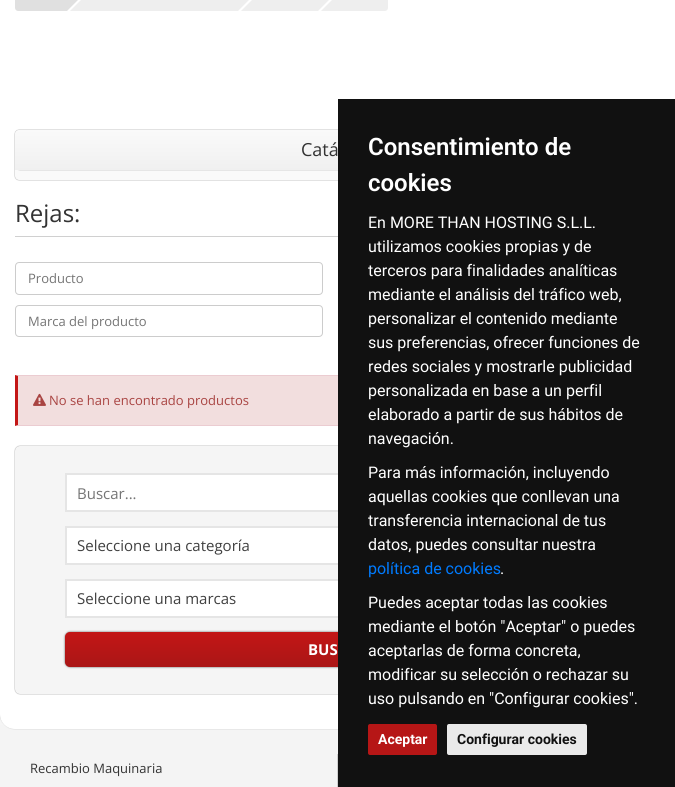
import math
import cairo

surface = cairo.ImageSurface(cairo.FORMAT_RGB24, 675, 787)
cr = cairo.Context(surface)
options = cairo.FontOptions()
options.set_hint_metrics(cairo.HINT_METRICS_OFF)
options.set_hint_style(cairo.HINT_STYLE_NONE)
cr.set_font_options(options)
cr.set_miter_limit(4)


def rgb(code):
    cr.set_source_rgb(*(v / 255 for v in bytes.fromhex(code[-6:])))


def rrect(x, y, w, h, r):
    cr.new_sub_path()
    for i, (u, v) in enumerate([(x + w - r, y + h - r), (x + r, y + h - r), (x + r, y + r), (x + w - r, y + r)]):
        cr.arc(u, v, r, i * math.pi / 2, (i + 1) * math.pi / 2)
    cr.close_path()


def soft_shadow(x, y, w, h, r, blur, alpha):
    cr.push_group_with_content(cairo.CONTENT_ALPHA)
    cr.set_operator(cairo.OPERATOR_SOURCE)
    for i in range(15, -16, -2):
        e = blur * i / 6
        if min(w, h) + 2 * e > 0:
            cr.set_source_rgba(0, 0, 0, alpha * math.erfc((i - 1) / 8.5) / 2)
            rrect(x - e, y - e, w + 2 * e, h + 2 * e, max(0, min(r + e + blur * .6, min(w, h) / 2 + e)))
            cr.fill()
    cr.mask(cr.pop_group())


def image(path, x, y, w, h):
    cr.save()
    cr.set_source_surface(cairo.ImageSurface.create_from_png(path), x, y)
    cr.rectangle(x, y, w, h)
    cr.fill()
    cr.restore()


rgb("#ffffff")
cr.paint()
gradient = cairo.LinearGradient(337, 654, 338, 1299)
gradient.add_color_stop_rgba(0, 0.961, 0.961, 0.961, 1)
gradient.add_color_stop_rgba(1, 0.941, 0.941, 0.941, 1)
cr.set_source(gradient)
cr.rectangle(0, 714, 338, 73)
cr.fill()
rgb("#000000")
soft_shadow(0, -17, 675, 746, 15, 0.5, 0.2)
rgb("#ffffff")
cr.new_path()
cr.move_to(0, -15)
cr.line_to(675, -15)
cr.line_to(675, 714)
cr.curve_to(675, 722.5, 668.5, 729, 660, 729)
cr.line_to(15, 729)
cr.curve_to(6.5, 729, 0, 722.5, 0, 714)
cr.close_path()
cr.fill()
rgb("#e0e0e0")
cr.new_path()
cr.move_to(18, -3)
cr.line_to(67, -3)
cr.line_to(67, 11)
cr.line_to(18, 11)
cr.curve_to(16.5, 11, 15, 9.5, 15, 8)
cr.line_to(15, 0)
cr.curve_to(15, -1.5, 16.5, -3, 18, -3)
cr.close_path()
cr.fill()
cr.new_path()
cr.move_to(67, 11)
cr.line_to(67, -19)
cr.line_to(82, -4)
cr.close_path()
cr.fill()
rgb("#eeeeee")
cr.new_path()
cr.move_to(85, 11)
cr.line_to(70, 11)
cr.line_to(85, -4)
cr.close_path()
cr.fill()
cr.rectangle(85, 0, 153, 11)
cr.fill()
cr.new_path()
cr.move_to(238, 11)
cr.line_to(238, -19)
cr.line_to(253, -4)
cr.close_path()
cr.fill()
cr.new_path()
cr.move_to(256, 11)
cr.line_to(241, 11)
cr.line_to(256, -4)
cr.close_path()
cr.fill()
cr.rectangle(256, 0, 62, 11)
cr.fill()
cr.new_path()
cr.move_to(318, 11)
cr.line_to(318, -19)
cr.line_to(333, -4)
cr.close_path()
cr.fill()
cr.new_path()
cr.move_to(336, 11)
cr.line_to(321, 11)
cr.line_to(336, -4)
cr.close_path()
cr.fill()
cr.new_path()
cr.move_to(336, -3)
cr.line_to(385, -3)
cr.curve_to(386.5, -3, 388, -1.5, 388, 0)
cr.line_to(388, 8)
cr.curve_to(388, 9.5, 386.5, 11, 385, 11)
cr.line_to(336, 11)
cr.close_path()
cr.fill()
rgb("#888888")
soft_shadow(15, 130, 645, 50, 4, 0.5, 1)
rgb("#fafafa")
rrect(15, 130, 645, 50, 4)
cr.fill()
rgb("#aaaaaa")
soft_shadow(16, 132, 643, 38, 4, 0.5, 1)
gradient = cairo.LinearGradient(338, 130, 338, 170)
gradient.add_color_stop_rgba(0, 0.98, 0.98, 0.98, 1)
gradient.add_color_stop_rgba(1, 0.941, 0.941, 0.941, 1)
cr.set_source(gradient)
cr.new_path()
cr.move_to(20, 130)
cr.line_to(655, 130)
cr.curve_to(658, 130, 660, 132, 660, 135)
cr.line_to(660, 170)
cr.line_to(15, 170)
cr.line_to(15, 135)
cr.curve_to(15, 132, 17, 130, 20, 130)
cr.close_path()
cr.fill()
rgb("#d0d0d0")
cr.rectangle(15, 236, 323, 1)
cr.fill()
rrect(15.5, 262.5, 307, 32, 3.5)
rgb("#cccccc")
cr.set_line_width(1)
cr.stroke()
rrect(15.5, 305.5, 307, 31, 3.5)
cr.stroke()
rgb("#f2dede")
cr.rectangle(18, 376, 320, 49)
cr.fill()
rgb("#ebccd1")
cr.new_path()
cr.move_to(15, 375)
cr.line_to(660, 375)
cr.line_to(659, 376)
cr.line_to(18, 376)
cr.close_path()
cr.fill()
cr.new_path()
cr.move_to(660, 426)
cr.line_to(15, 426)
cr.line_to(18, 425)
cr.line_to(659, 425)
cr.close_path()
cr.fill()
rgb("#c31616")
cr.new_path()
cr.move_to(15, 426)
cr.line_to(15, 375)
cr.line_to(18, 376)
cr.line_to(18, 425)
cr.close_path()
cr.fill()
image("img/1.png", 33, 393, 13, 13)
rgb("#888888")
soft_shadow(15, 446, 645, 248, 5, 0.5, 1)
rgb("#f5f5f5")
rrect(15, 446, 645, 248, 5)
cr.fill()
rgb("#ffffff")
cr.rectangle(67, 475, 271, 35)
cr.fill()
cr.rectangle(66, 474, 543, 37)
rgb("#e5e5e5")
cr.set_line_width(2)
cr.stroke()
rgb("#ffffff")
cr.rectangle(67, 528, 271, 35)
cr.fill()
cr.rectangle(66, 527, 543, 37)
rgb("#e5e5e5")
cr.stroke()
rgb("#ffffff")
cr.rectangle(67, 581, 271, 35)
cr.fill()
cr.rectangle(66, 580, 543, 37)
rgb("#e5e5e5")
cr.stroke()
rgb("#666666")
soft_shadow(65, 632, 545, 35, 5, 1, 1)
gradient = cairo.LinearGradient(338, 632, 338, 667)
gradient.add_color_stop_rgba(0, 0.765, 0.086, 0.086, 1)
gradient.add_color_stop_rgba(1, 0.667, 0.086, 0.086, 1)
cr.set_source(gradient)
rrect(65, 632, 545, 35, 5)
cr.fill()
rgb("#111111")
cr.rectangle(338, 99, 337, 688)
cr.fill()
rgb("#b61616")
rrect(368, 724, 69, 31, 2)
cr.fill()
rgb("#eaeaea")
rrect(447, 724, 140, 31, 2)
cr.fill()
rgb("#cfcfcf")
cr.rectangle(337, 754, 1, 33)
cr.fill()
cr.select_font_face("Open Sans")
cr.set_font_size(18)
rgb("#333333")
cr.move_to(301, 156)
cr.show_text("Catá")
cr.set_font_size(24)
cr.move_to(15, 222)
cr.show_text("Rejas:")
cr.set_font_size(13)
rgb("#757575")
cr.move_to(28, 283)
cr.show_text("Producto")
cr.move_to(28, 326)
cr.show_text("Marca del producto")
rgb("#a94442")
cr.move_to(49, 405)
cr.show_text("No se han encontrado productos")
cr.set_font_size(15)
rgb("#757575")
cr.move_to(77, 499)
cr.show_text("Buscar...")
rgb("#404040")
cr.move_to(77, 551)
cr.show_text("Seleccione una categoría")
cr.move_to(77, 604)
cr.show_text("Seleccione una marcas")
cr.select_font_face("Open Sans", cairo.FONT_SLANT_NORMAL, cairo.FONT_WEIGHT_BOLD)
rgb("#ffffff")
cr.move_to(308, 655)
cr.show_text("BUS")
cr.select_font_face("Roboto SemiBold")
cr.set_font_size(24)
cr.move_to(368, 155)
cr.show_text("Consentimiento de")
cr.move_to(368, 191)
cr.show_text("cookies")
cr.select_font_face("Roboto")
cr.set_font_size(16)
for x, y, s in [
    (368, 228, "En MORE THAN HOSTING S.L.L."),
    (368, 252, "utilizamos cookies propias y de"),
    (368, 276, "terceros para finalidades analíticas"),
    (368, 300, "mediante el análisis del tráfico web,"),
    (368, 324, "personalizar el contenido mediante"),
    (368, 348, "sus preferencias, ofrecer funciones de"),
    (368, 372, "redes sociales y mostrarle publicidad"),
    (368, 396, "personalizada en base a un perfil"),
    (368, 420, "elaborado a partir de sus hábitos de"),
    (368, 444, "navegación."),
    (368, 478, "Para más información, incluyendo"),
    (368, 502, "aquellas cookies que conllevan una"),
    (368, 526, "transferencia internacional de tus"),
    (368, 550, "datos, puedes consultar nuestra"),
]:
    cr.move_to(x, y)
    cr.show_text(s)
rgb("#007bff")
cr.move_to(368, 574)
cr.show_text("política de cookies")
rgb("#ffffff")
for x, y, s in [
    (500, 574, "."),
    (368, 608, "Puedes aceptar todas las cookies"),
    (368, 632, "mediante el botón \"Aceptar\" o puedes"),
    (368, 656, "aceptarlas de forma concreta,"),
    (368, 680, "modificar su selección o rechazar su"),
    (368, 704, "uso pulsando en \"Configurar cookies\"."),
]:
    cr.move_to(x, y)
    cr.show_text(s)
cr.select_font_face("Roboto", cairo.FONT_SLANT_NORMAL, cairo.FONT_WEIGHT_BOLD)
cr.set_font_size(14)
cr.move_to(378, 744)
cr.show_text("Aceptar")
rgb("#111111")
cr.move_to(457, 744)
cr.show_text("Configurar cookies")
cr.select_font_face("Open Sans")
cr.set_font_size(13)
rgb("#333333")
cr.move_to(30, 773)
cr.show_text("Recambio Maquinaria")
surface.write_to_png("page.png")
